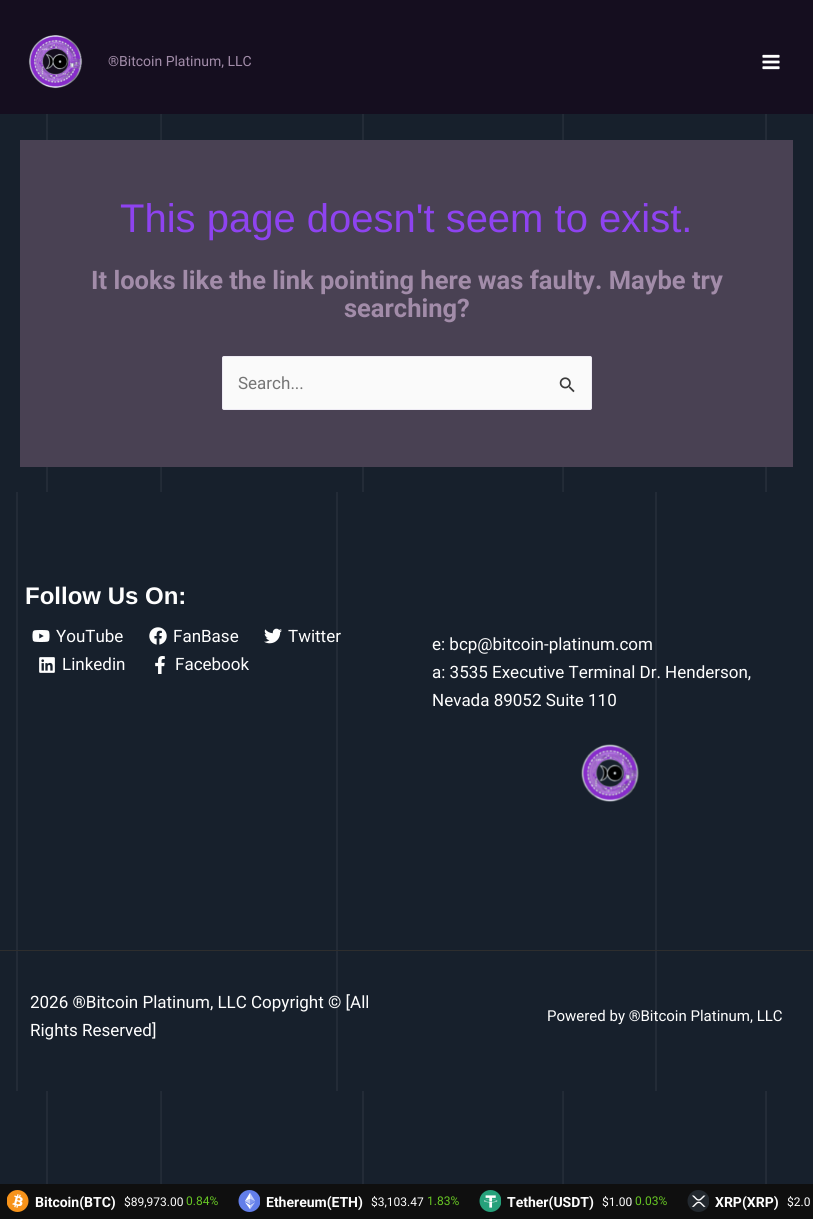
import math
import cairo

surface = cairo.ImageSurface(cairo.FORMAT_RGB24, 813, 1219)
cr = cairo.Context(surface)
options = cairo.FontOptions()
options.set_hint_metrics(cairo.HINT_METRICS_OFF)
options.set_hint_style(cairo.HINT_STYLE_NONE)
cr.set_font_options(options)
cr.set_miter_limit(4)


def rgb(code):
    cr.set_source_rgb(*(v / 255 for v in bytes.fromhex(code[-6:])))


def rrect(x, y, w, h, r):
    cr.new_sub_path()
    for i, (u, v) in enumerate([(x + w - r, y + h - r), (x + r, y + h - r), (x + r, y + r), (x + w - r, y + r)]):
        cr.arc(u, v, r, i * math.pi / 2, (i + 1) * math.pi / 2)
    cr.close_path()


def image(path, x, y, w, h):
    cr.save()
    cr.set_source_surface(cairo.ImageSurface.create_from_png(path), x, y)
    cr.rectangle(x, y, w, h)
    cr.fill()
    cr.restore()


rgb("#ffffff")
cr.paint()
image("img/1.png", 0, 114, 813, 1070)
rgb("#150e1f")
cr.rectangle(0, 0, 813, 114)
cr.fill()
image("img/2.png", 28, 35, 55, 54)
image("img/3.png", 762, 54, 18, 16)
rgb("#494153")
cr.rectangle(20, 140, 773, 327)
cr.fill()
rgb("#fafafa")
rrect(222.5, 356.5, 369, 53, 1.5)
cr.fill_preserve()
rgb("#eeebf4")
cr.set_line_width(1)
cr.stroke()
image("img/4.png", 559, 377, 16, 16)
image("img/5.png", 16, 492, 751, 458)
image("img/6.png", 32, 630, 18, 12)
image("img/7.png", 149, 627, 18, 18)
image("img/8.png", 264, 628, 18, 16)
image("img/9.png", 39, 657, 16, 16)
image("img/10.png", 155, 656, 10, 18)
image("img/11.png", 581, 744, 58, 58)
image("img/12.png", 16, 951, 751, 140)
rgb("#2e2e2e")
cr.rectangle(0, 950, 813, 1)
cr.fill()
rgb("#0f0f0f")
cr.rectangle(0, 1184, 813, 35)
cr.fill()
image("img/13.png", 7, 1190, 22, 22)
image("img/14.png", 238, 1190, 22, 22)
image("img/15.png", 479, 1190, 22, 22)
image("img/16.png", 687, 1190, 22, 22)
cr.select_font_face("Roboto")
cr.set_font_size(14)
rgb("#a28ca9")
cr.move_to(108, 66)
cr.show_text("®Bitcoin Platinum, LLC")
cr.select_font_face("Liberation Sans")
cr.set_font_size(40)
rgb("#8e43f0")
cr.move_to(120, 232)
cr.show_text("This page doesn't seem to exist.")
cr.select_font_face("Roboto", cairo.FONT_SLANT_NORMAL, cairo.FONT_WEIGHT_BOLD)
cr.set_font_size(25.5)
rgb("#a28ca9")
cr.move_to(91, 289)
cr.show_text("It looks like the link pointing here was faulty. Maybe try")
cr.move_to(344, 317)
cr.show_text("searching?")
cr.select_font_face("Roboto")
cr.set_font_size(17)
rgb("#757575")
cr.move_to(238, 389)
cr.show_text("Search...")
cr.select_font_face("Liberation Sans", cairo.FONT_SLANT_NORMAL, cairo.FONT_WEIGHT_BOLD)
cr.set_font_size(24)
rgb("#fefefe")
cr.move_to(25, 604)
cr.show_text("Follow Us On:")
cr.select_font_face("Roboto")
cr.set_font_size(17)
for x, y, s in [
    (56, 642, "YouTube"),
    (173, 642, "FanBase"),
    (288, 642, "Twitter"),
    (62, 670, "Linkedin"),
    (175, 670, "Facebook"),
    (432, 650, "e: bcp@bitcoin-platinum.com"),
    (432, 678, "a: 3535 Executive Terminal Dr. Henderson,"),
    (432, 706, "Nevada 89052 Suite 110"),
    (30, 1008, "2026 ®Bitcoin Platinum, LLC Copyright © [All"),
    (30, 1036, "Rights Reserved]"),
]:
    cr.move_to(x, y)
    cr.show_text(s)
cr.set_font_size(15)
cr.move_to(547, 1021)
cr.show_text("Powered by ®Bitcoin Platinum, LLC")
cr.select_font_face("Roboto", cairo.FONT_SLANT_NORMAL, cairo.FONT_WEIGHT_BOLD)
cr.set_font_size(14)
cr.move_to(35, 1207)
cr.show_text("Bitcoin(BTC)")
cr.select_font_face("Roboto")
cr.set_font_size(12)
cr.move_to(124, 1206)
cr.show_text("$89,973.00")
rgb("#67c624")
cr.move_to(186, 1205)
cr.show_text("0.84%")
cr.select_font_face("Roboto", cairo.FONT_SLANT_NORMAL, cairo.FONT_WEIGHT_BOLD)
cr.set_font_size(14)
rgb("#fefefe")
cr.move_to(266, 1207)
cr.show_text("Ethereum(ETH)")
cr.select_font_face("Roboto")
cr.set_font_size(12)
cr.move_to(371, 1206)
cr.show_text("$3,103.47")
rgb("#67c624")
cr.move_to(427, 1205)
cr.show_text("1.83%")
cr.select_font_face("Roboto", cairo.FONT_SLANT_NORMAL, cairo.FONT_WEIGHT_BOLD)
cr.set_font_size(14)
rgb("#fefefe")
cr.move_to(507, 1207)
cr.show_text("Tether(USDT)")
cr.select_font_face("Roboto")
cr.set_font_size(12)
cr.move_to(602, 1206)
cr.show_text("$1.00")
rgb("#67c624")
cr.move_to(635, 1205)
cr.show_text("0.03%")
cr.select_font_face("Roboto", cairo.FONT_SLANT_NORMAL, cairo.FONT_WEIGHT_BOLD)
cr.set_font_size(14)
rgb("#fefefe")
cr.move_to(715, 1207)
cr.show_text("XRP(XRP)")
cr.select_font_face("Roboto")
cr.set_font_size(12)
cr.move_to(787, 1206)
cr.show_text("$2.0")
surface.write_to_png("page.png")
